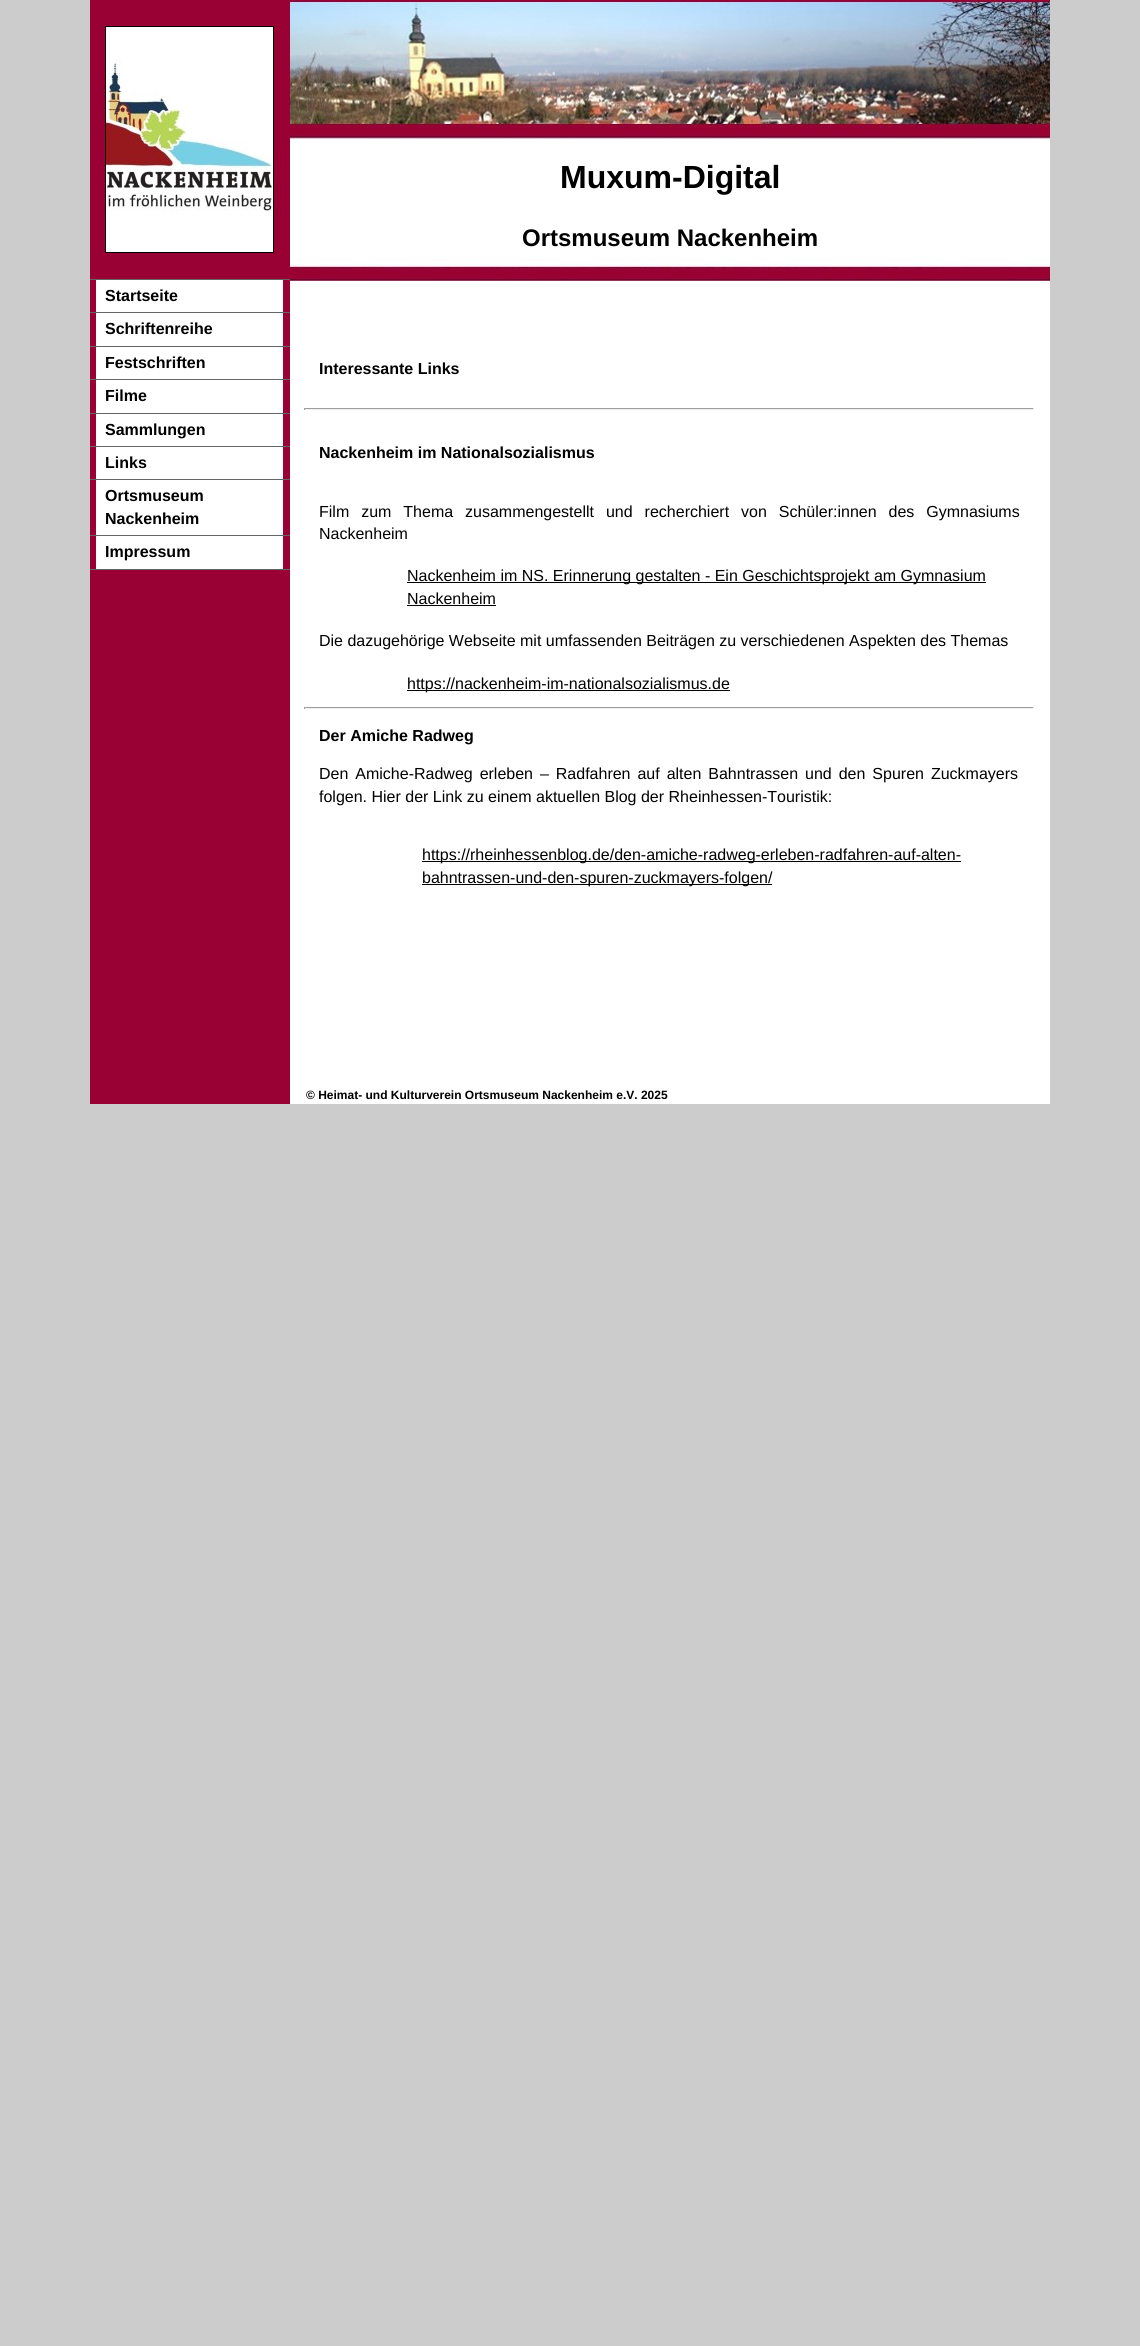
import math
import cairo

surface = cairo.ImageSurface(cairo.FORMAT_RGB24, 1140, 2346)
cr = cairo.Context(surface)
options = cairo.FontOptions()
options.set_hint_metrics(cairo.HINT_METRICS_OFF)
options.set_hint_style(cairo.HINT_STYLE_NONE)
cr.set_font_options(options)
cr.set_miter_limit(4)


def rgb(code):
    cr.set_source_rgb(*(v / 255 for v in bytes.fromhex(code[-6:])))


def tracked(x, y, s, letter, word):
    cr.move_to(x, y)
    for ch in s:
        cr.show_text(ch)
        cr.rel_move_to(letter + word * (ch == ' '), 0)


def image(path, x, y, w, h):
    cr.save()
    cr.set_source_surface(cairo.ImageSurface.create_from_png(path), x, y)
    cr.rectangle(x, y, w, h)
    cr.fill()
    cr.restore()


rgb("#cccccc")
cr.paint()
rgb("#990033")
cr.rectangle(90, 0, 200, 1104)
cr.fill()
cr.rectangle(105.5, 26.5, 168, 226)
rgb("#000000")
cr.set_line_width(1)
cr.stroke()
image("img/1.png", 106, 27, 167, 225)
for x, y, w, h, color in [
    (90, 279, 200, 1, "#666666"),
    (96, 280, 187, 32, "#ffffff"),
    (90, 312, 200, 1, "#666666"),
    (96, 313, 187, 33, "#ffffff"),
    (90, 346, 200, 1, "#666666"),
    (96, 347, 187, 32, "#ffffff"),
    (90, 379, 200, 1, "#666666"),
    (96, 380, 187, 33, "#ffffff"),
    (90, 413, 200, 1, "#666666"),
    (96, 414, 187, 32, "#ffffff"),
    (90, 446, 200, 1, "#666666"),
    (96, 447, 187, 32, "#ffffff"),
    (90, 479, 200, 1, "#666666"),
    (96, 480, 187, 55, "#ffffff"),
    (90, 535, 200, 1, "#666666"),
    (96, 536, 187, 33, "#ffffff"),
    (90, 569, 200, 1, "#666666"),
]:
    rgb(color)
    cr.rectangle(x, y, w, h)
    cr.fill()
image("img/2.png", 290, 0, 760, 281)
for x, y, w, h, color in [
    (290, 281, 760, 823, "#ffffff"),
    (304, 408, 730, 1, "#9f9f9f"),
    (1033, 408, 1, 2, "#eeeeee"),
    (304, 409, 730, 1, "#eeeeee"),
    (304, 408, 1, 2, "#9f9f9f"),
    (407, 582, 579, 1, "#000000"),
    (407, 605, 89, 1, "#000000"),
    (407, 690, 323, 1, "#000000"),
    (304, 707, 730, 1, "#9f9f9f"),
    (1033, 707, 1, 2, "#eeeeee"),
    (304, 708, 730, 1, "#eeeeee"),
    (304, 707, 1, 2, "#9f9f9f"),
    (422, 861, 539, 1, "#000000"),
    (422, 884, 350, 1, "#000000"),
]:
    rgb(color)
    cr.rectangle(x, y, w, h)
    cr.fill()
cr.select_font_face("Liberation Sans", cairo.FONT_SLANT_NORMAL, cairo.FONT_WEIGHT_BOLD)
cr.set_font_size(16)
for x, y, s in [
    (105, 301, "Startseite"),
    (105, 334, "Schriftenreihe"),
    (105, 368, "Festschriften"),
    (105, 401, "Filme"),
    (105, 435, "Sammlungen"),
    (105, 468, "Links"),
    (105, 501, "Ortsmuseum"),
    (105, 524, "Nackenheim"),
    (105, 557, "Impressum"),
]:
    cr.move_to(x, y)
    cr.show_text(s)
cr.set_font_size(32)
cr.move_to(560, 188)
cr.show_text("Muxum-Digital")
cr.set_font_size(24)
cr.move_to(522, 246)
cr.show_text("Ortsmuseum Nackenheim")
cr.set_font_size(16)
cr.move_to(319, 374)
cr.show_text("Interessante Links")
cr.move_to(319, 458)
cr.show_text("Nackenheim im Nationalsozialismus")
cr.select_font_face("Liberation Sans")
tracked(319, 517, "Film zum Thema zusammengestellt und recherchiert von Schüler:innen des Gymnasiums", 0, 7.5)
for x, y, s in [
    (319, 539, "Nackenheim"),
    (407, 581, "Nackenheim im NS. Erinnerung gestalten - Ein Geschichtsprojekt am Gymnasium"),
    (407, 604, "Nackenheim"),
    (319, 646, "Die dazugehörige Webseite mit umfassenden Beiträgen zu verschiedenen Aspekten des Themas"),
    (407, 689, "https://nackenheim-im-nationalsozialismus.de"),
]:
    cr.move_to(x, y)
    cr.show_text(s)
cr.select_font_face("Liberation Sans", cairo.FONT_SLANT_NORMAL, cairo.FONT_WEIGHT_BOLD)
cr.move_to(319, 741)
cr.show_text("Der Amiche Radweg")
cr.select_font_face("Liberation Sans")
tracked(319, 779, "Den Amiche-Radweg erleben – Radfahren auf alten Bahntrassen und den Spuren Zuckmayers", 0, 2.5)
for x, y, s in [
    (319, 802, "folgen. Hier der Link zu einem aktuellen Blog der Rheinhessen-Touristik:"),
    (422, 860, "https://rheinhessenblog.de/den-amiche-radweg-erleben-radfahren-auf-alten-"),
    (422, 883, "bahntrassen-und-den-spuren-zuckmayers-folgen/"),
]:
    cr.move_to(x, y)
    cr.show_text(s)
cr.select_font_face("Liberation Sans", cairo.FONT_SLANT_NORMAL, cairo.FONT_WEIGHT_BOLD)
cr.set_font_size(12)
cr.move_to(306, 1099)
cr.show_text("© Heimat- und Kulturverein Ortsmuseum Nackenheim e.V. 2025")
surface.write_to_png("page.png")
